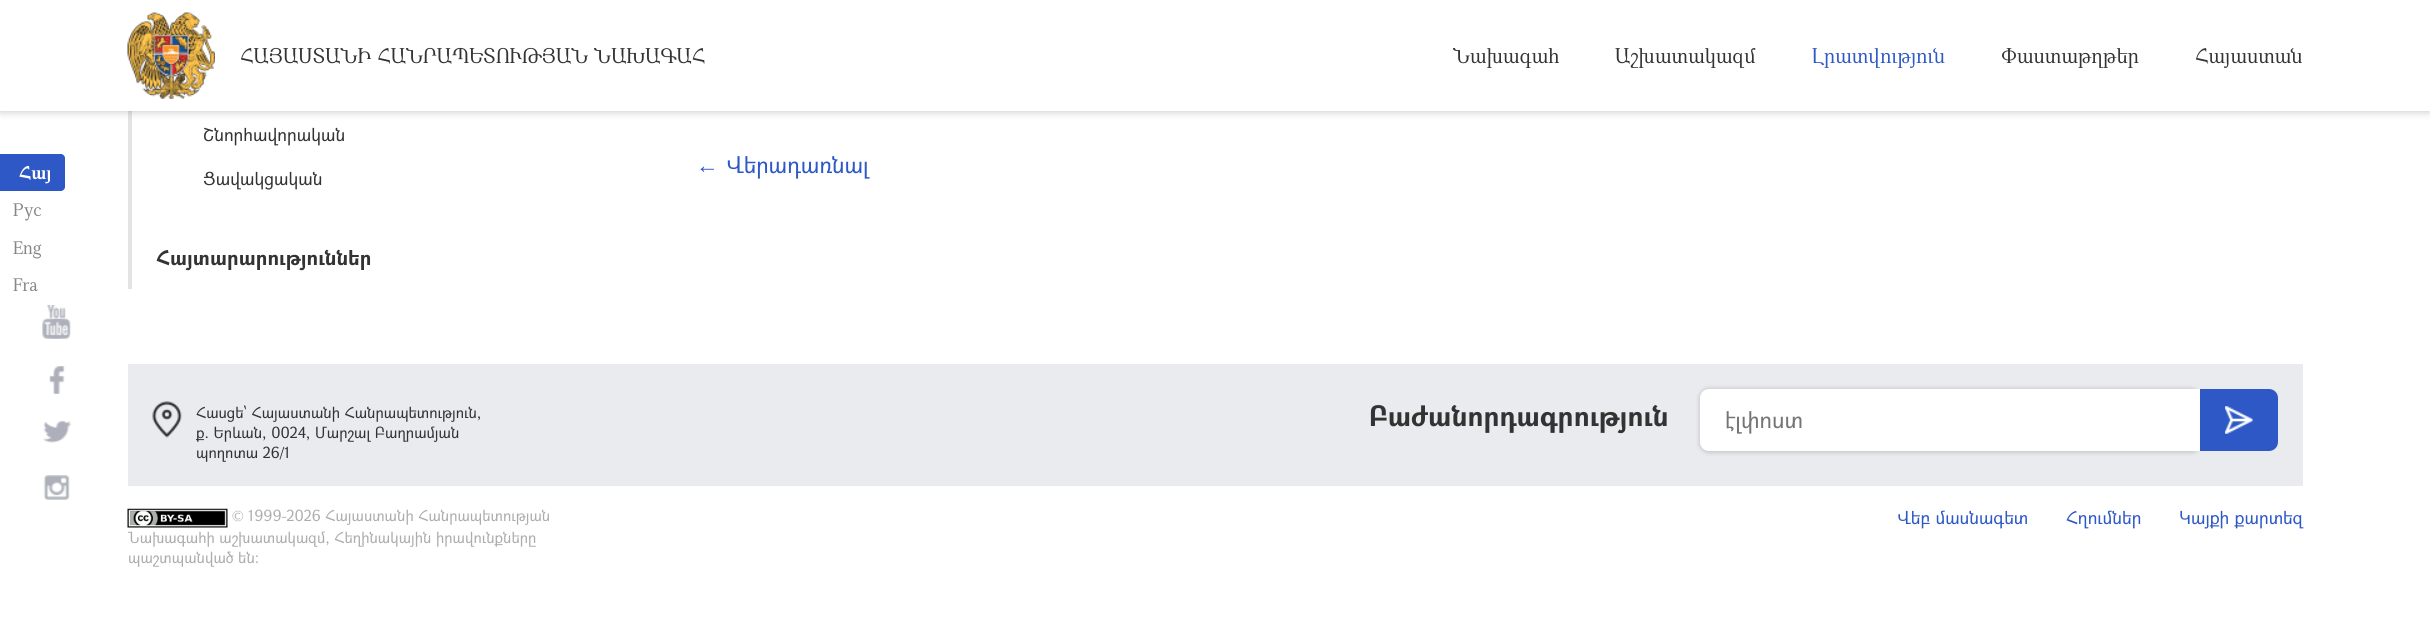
import math
import cairo

surface = cairo.ImageSurface(cairo.FORMAT_RGB24, 2430, 617)
cr = cairo.Context(surface)
options = cairo.FontOptions()
options.set_hint_metrics(cairo.HINT_METRICS_OFF)
options.set_hint_style(cairo.HINT_STYLE_NONE)
cr.set_font_options(options)
cr.set_miter_limit(4)


def rgb(code):
    cr.set_source_rgb(*(v / 255 for v in bytes.fromhex(code[-6:])))


def rrect(x, y, w, h, r):
    cr.new_sub_path()
    for i, (u, v) in enumerate([(x + w - r, y + h - r), (x + r, y + h - r), (x + r, y + r), (x + w - r, y + r)]):
        cr.arc(u, v, r, i * math.pi / 2, (i + 1) * math.pi / 2)
    cr.close_path()


def soft_shadow(x, y, w, h, r, blur, alpha):
    cr.push_group_with_content(cairo.CONTENT_ALPHA)
    cr.set_operator(cairo.OPERATOR_SOURCE)
    for i in range(15, -16, -2):
        e = blur * i / 6
        if min(w, h) + 2 * e > 0:
            cr.set_source_rgba(0, 0, 0, alpha * math.erfc((i - 1) / 8.5) / 2)
            rrect(x - e, y - e, w + 2 * e, h + 2 * e, max(0, min(r + e + blur * .6, min(w, h) / 2 + e)))
            cr.fill()
    cr.mask(cr.pop_group())


def image(path, x, y, w, h):
    cr.save()
    cr.set_source_surface(cairo.ImageSurface.create_from_png(path), x, y)
    cr.rectangle(x, y, w, h)
    cr.fill()
    cr.restore()


rgb("#ffffff")
cr.paint()
rgb("#e4e3e3")
cr.rectangle(128, 111, 4, 178)
cr.fill()
rgb("#000000")
soft_shadow(0, 0, 2430, 111, 0, 4.5, 0.25)
rgb("#ffffff")
cr.rectangle(0, 0, 2430, 111)
cr.fill()
image("img/1.png", 127, 12, 88, 87)
rgb("#2d58c6")
cr.new_path()
cr.move_to(0, 154)
cr.line_to(61, 154)
cr.curve_to(63, 154, 65, 156, 65, 158)
cr.line_to(65, 187)
cr.curve_to(65, 189, 63, 191, 61, 191)
cr.line_to(0, 191)
cr.close_path()
cr.fill()
image("img/2.png", 42, 305, 29, 34)
image("img/3.png", 49, 366, 16, 28)
image("img/4.png", 43, 421, 29, 22)
image("img/5.png", 43, 475, 27, 25)
rgb("#eaebef")
cr.rectangle(128, 364, 2175, 122)
cr.fill()
image("img/6.png", 152, 401, 30, 37)
rgb("#000000")
soft_shadow(1699, 388, 502, 65, 10, 2, 0.15)
rgb("#ffffff")
cr.new_path()
cr.move_to(1709, 389)
cr.line_to(2200, 389)
cr.line_to(2200, 451)
cr.line_to(1709, 451)
cr.curve_to(1704, 451, 1700, 447, 1700, 442)
cr.line_to(1700, 398)
cr.curve_to(1700, 393, 1704, 389, 1709, 389)
cr.close_path()
cr.fill()
rgb("#2d58c6")
cr.new_path()
cr.move_to(2200, 389)
cr.line_to(2269, 389)
cr.curve_to(2274, 389, 2278, 393, 2278, 398)
cr.line_to(2278, 442)
cr.curve_to(2278, 447, 2274, 451, 2269, 451)
cr.line_to(2200, 451)
cr.close_path()
cr.fill()
image("img/7.png", 2225, 406, 28, 28)
image("img/8.png", 127, 508, 101, 20)
cr.select_font_face("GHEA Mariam")
cr.set_font_size(20)
rgb("#333333")
for x, y, s in [
    (240, 63, "ՀԱՅԱՍՏԱՆԻ ՀԱՆՐԱՊԵՏՈՒԹՅԱՆ ՆԱԽԱԳԱՀ"),
    (1453, 63, "Նախագահ"),
    (1615, 63, "Աշխատակազմ"),
]:
    cr.move_to(x, y)
    cr.show_text(s)
rgb("#2d58c6")
cr.move_to(1812, 63)
cr.show_text("Լրատվություն")
rgb("#333333")
cr.move_to(2001, 63)
cr.show_text("Փաստաթղթեր")
cr.move_to(2195, 63)
cr.show_text("Հայաստան")
cr.select_font_face("GHEA Mariam", cairo.FONT_SLANT_NORMAL, cairo.FONT_WEIGHT_BOLD)
cr.set_font_size(17.5)
rgb("#ffffff")
cr.move_to(19, 179)
cr.show_text("Հայ")
cr.select_font_face("GHEA Mariam")
rgb("#868686")
for x, y, s in [
    (13, 216, "Рус"),
    (13, 254, "Eng"),
    (13, 291, "Fra"),
]:
    cr.move_to(x, y)
    cr.show_text(s)
cr.select_font_face("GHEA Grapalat")
rgb("#333333")
cr.move_to(203, 141)
cr.show_text("Շնորհավորական")
cr.move_to(203, 185)
cr.show_text("Ցավակցական")
cr.select_font_face("GHEA Grapalat", cairo.FONT_SLANT_NORMAL, cairo.FONT_WEIGHT_BOLD)
cr.set_font_size(20)
cr.move_to(156, 265)
cr.show_text("Հայտարարություններ")
cr.select_font_face("Liberation Sans")
cr.set_font_size(22.5)
rgb("#2d58c6")
cr.move_to(696, 173)
cr.show_text("←")
cr.select_font_face("GHEA Grapalat")
cr.move_to(726, 173)
cr.show_text("Վերադառնալ")
cr.set_font_size(15)
rgb("#333333")
for x, y, s in [
    (196, 418, "Հասցե՝ Հայաստանի Հանրապետություն,"),
    (196, 438, "ք. Երևան, 0024, Մարշալ Բաղրամյան"),
    (196, 458, "պողոտա 26/1"),
]:
    cr.move_to(x, y)
    cr.show_text(s)
cr.select_font_face("GHEA Grapalat", cairo.FONT_SLANT_NORMAL, cairo.FONT_WEIGHT_BOLD)
cr.set_font_size(27.5)
cr.move_to(1369, 426)
cr.show_text("Բաժանորդագրություն")
cr.select_font_face("GHEA Grapalat")
cr.set_font_size(22.5)
rgb("#757575")
cr.move_to(1725, 428)
cr.show_text("էլփոստ")
cr.set_font_size(15)
rgb("#adadad")
for x, y, s in [
    (232, 521, "© 1999-2026 Հայաստանի Հանրապետության"),
    (128, 543, "Նախագահի աշխատակազմ, Հեղինակային իրավունքները"),
    (128, 563, "պաշտպանված են:"),
]:
    cr.move_to(x, y)
    cr.show_text(s)
cr.set_font_size(17.5)
rgb("#2d58c6")
for x, y, s in [
    (1897, 524, "Վեբ մասնագետ"),
    (2066, 524, "Հղումներ"),
    (2179, 524, "Կայքի քարտեզ"),
]:
    cr.move_to(x, y)
    cr.show_text(s)
surface.write_to_png("page.png")
